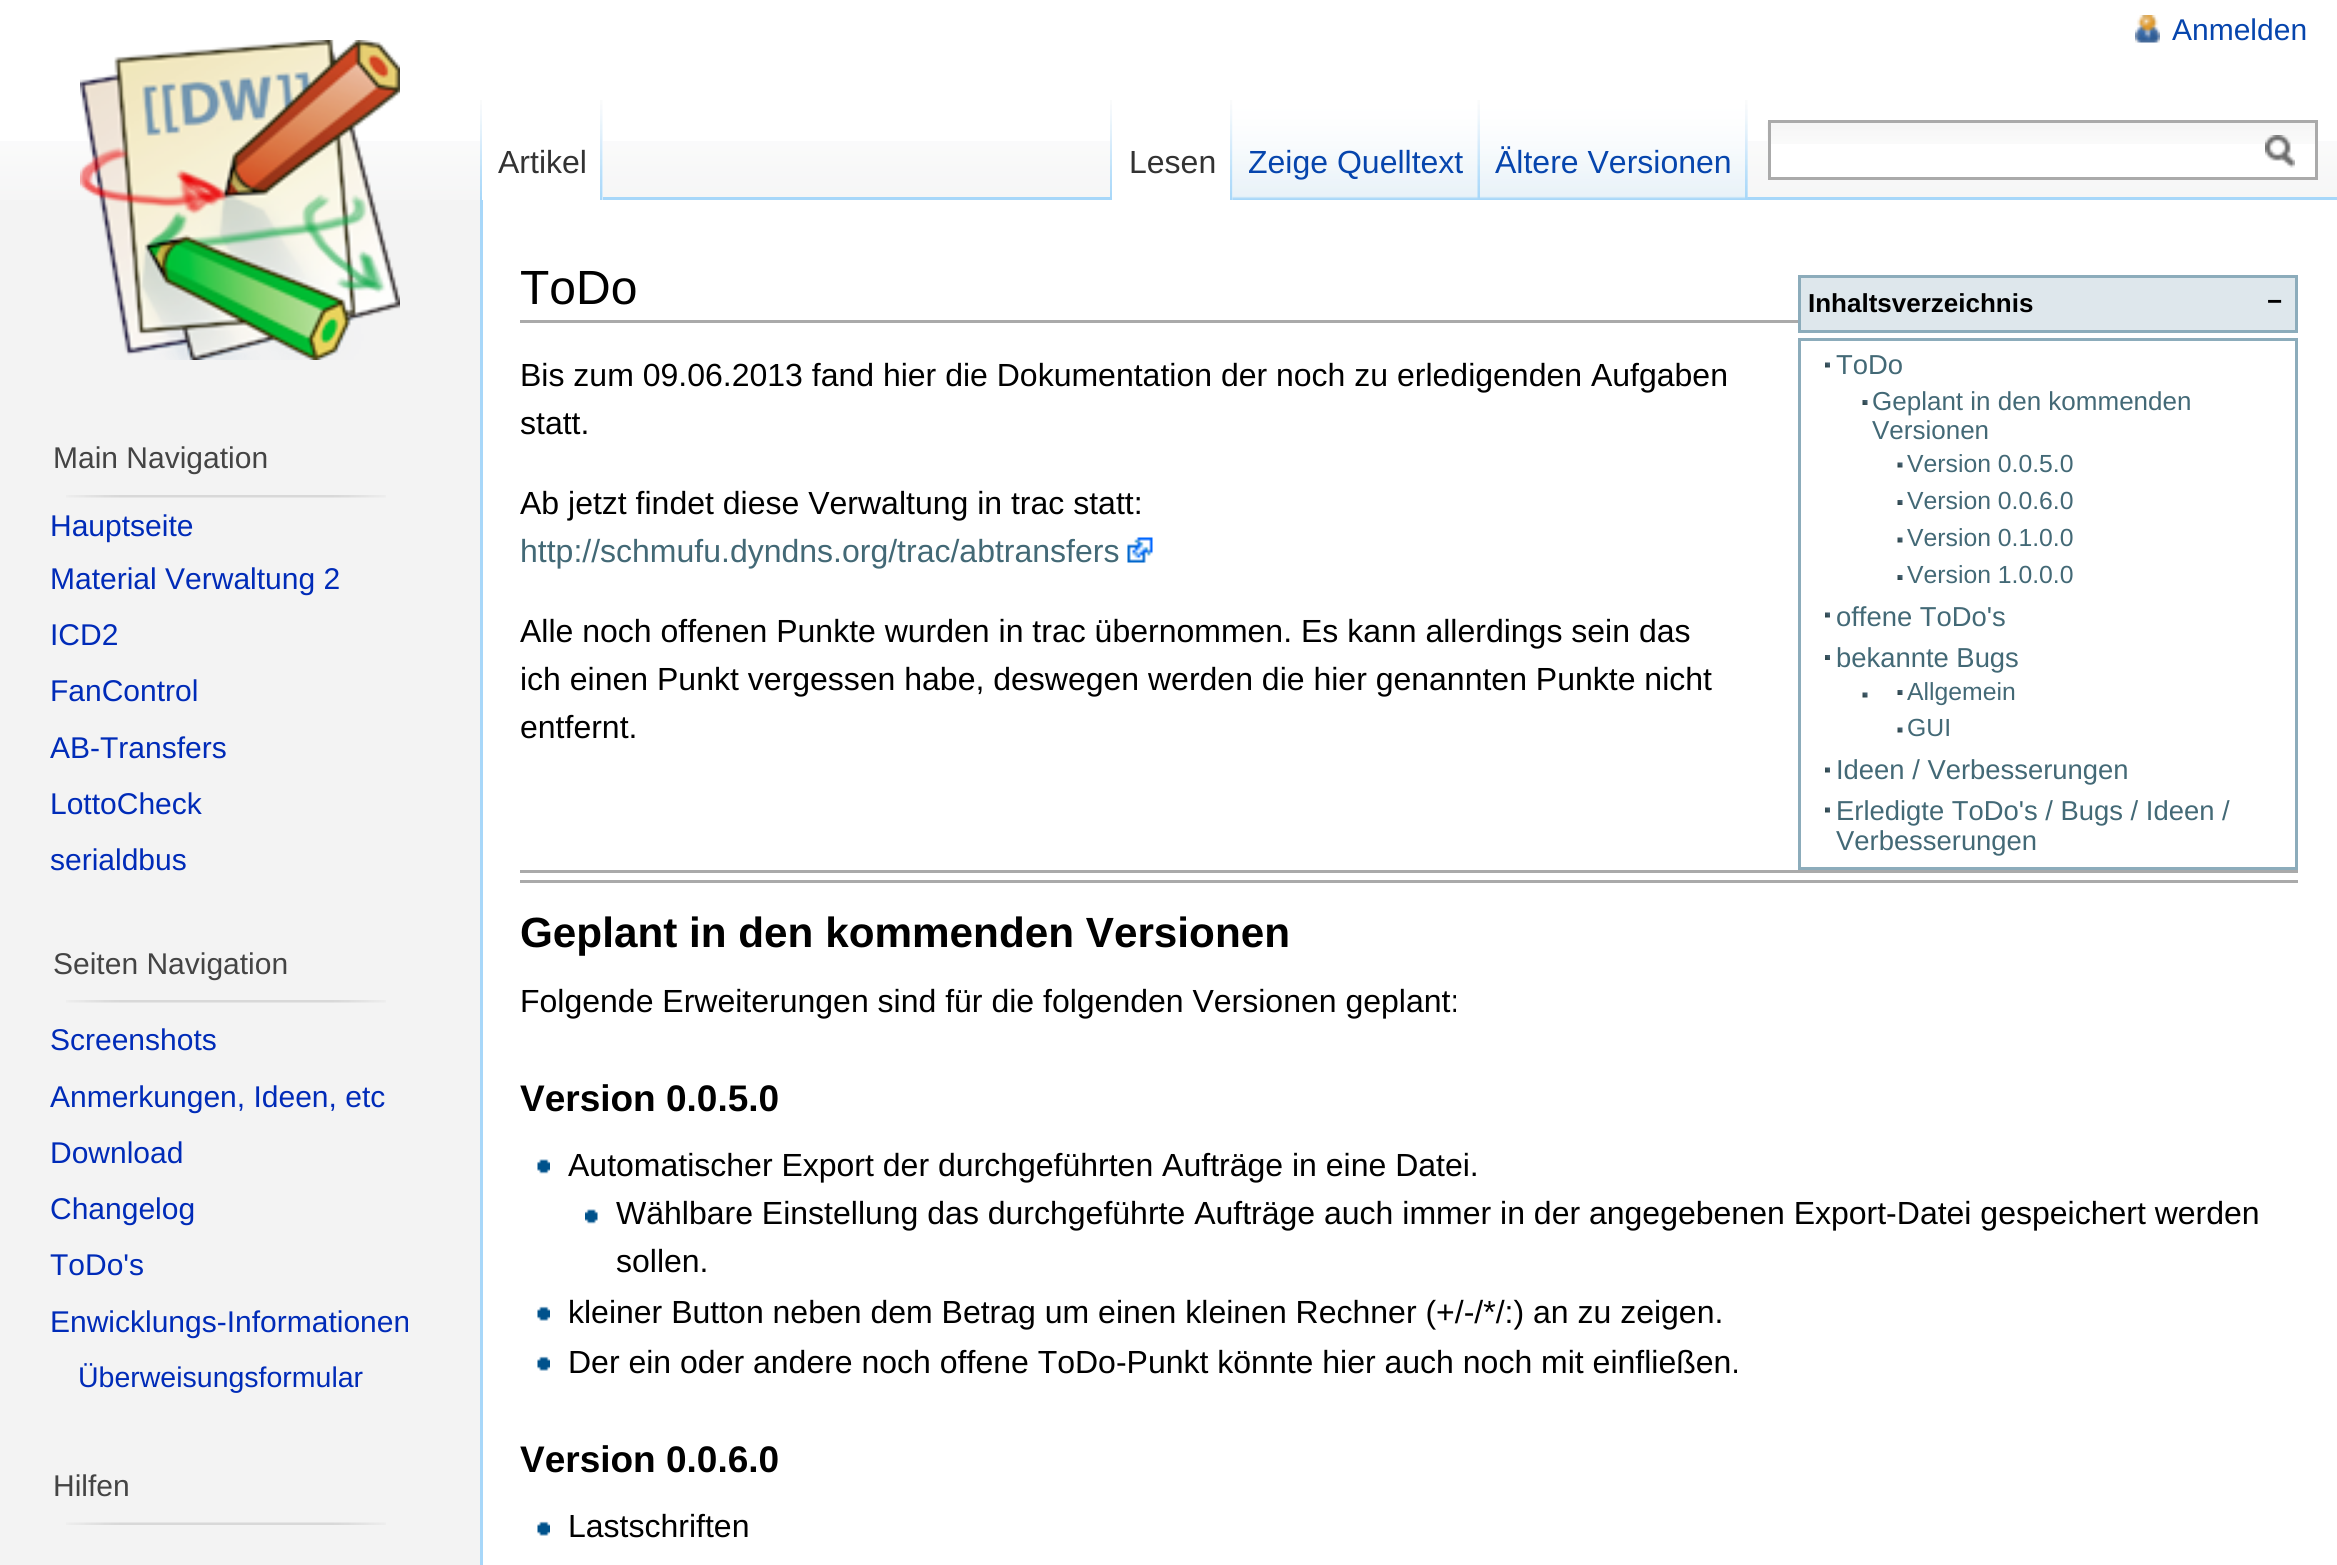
import math
import cairo

surface = cairo.ImageSurface(cairo.FORMAT_RGB24, 2337, 1565)
cr = cairo.Context(surface)
options = cairo.FontOptions()
options.set_hint_metrics(cairo.HINT_METRICS_OFF)
options.set_hint_style(cairo.HINT_STYLE_NONE)
cr.set_font_options(options)
cr.set_miter_limit(4)


def rgb(code):
    cr.set_source_rgb(*(v / 255 for v in bytes.fromhex(code[-6:])))


def image(path, x, y, w, h):
    cr.save()
    cr.set_source_surface(cairo.ImageSurface.create_from_png(path), x, y)
    cr.rectangle(x, y, w, h)
    cr.fill()
    cr.restore()


rgb("#f3f3f3")
cr.paint()
rgb("#ffffff")
cr.rectangle(0, 0, 2337, 141)
cr.fill()
image("img/1.png", 0, 141, 2337, 59)
image("img/2.png", 2135, 15, 25, 28)
image("img/3.png", 480, 100, 2, 97)
rgb("#a7d7f9")
cr.rectangle(480, 197, 1857, 3)
cr.fill()
rgb("#ffffff")
cr.rectangle(482, 141, 121, 59)
cr.fill()
image("img/4.png", 600, 100, 3, 100)
image("img/3.png", 1110, 100, 2, 97)
image("img/5.png", 1747, 100, 1, 97)
cr.rectangle(1112, 141, 121, 59)
cr.fill()
image("img/4.png", 1230, 100, 3, 100)
image("img/6.png", 1232, 100, 248, 100)
image("img/7.png", 1477, 100, 3, 99)
image("img/8.png", 1480, 100, 268, 100)
image("img/9.png", 1745, 100, 3, 100)
cr.rectangle(1771, 144, 544, 33)
cr.fill()
image("img/10.png", 1767, 122, 548, 22)
cr.rectangle(1769.5, 121.5, 547, 57)
rgb("#aaaaaa")
cr.set_line_width(3)
cr.stroke()
image("img/11.png", 2265, 135, 30, 33)
image("img/12.png", 80, 40, 320, 320)
image("img/13.png", 66, 495, 320, 3)
image("img/13.png", 66, 1000, 320, 3)
image("img/14.png", 66, 1522, 320, 3)
for x, y, w, h, color in [
    (483, 200, 1854, 1365, "#ffffff"),
    (480, 200, 3, 1365, "#a7d7f9"),
    (520, 320, 1278, 3, "#aaaaaa"),
]:
    rgb(color)
    cr.rectangle(x, y, w, h)
    cr.fill()
image("img/15.png", 1127, 537, 26, 26)
cr.rectangle(520, 870, 1778, 3)
cr.fill()
cr.rectangle(520, 880, 1778, 3)
cr.fill()
rgb("#dee7ec")
cr.rectangle(1799.5, 276.5, 497, 55)
cr.fill_preserve()
rgb("#8cacbb")
cr.stroke()
cr.rectangle(1799.5, 339.5, 497, 529)
cr.stroke()
image("img/16.png", 1825, 362, 5, 6)
image("img/17.png", 1862, 400, 6, 5)
image("img/18.png", 1897, 462, 6, 6)
image("img/17.png", 1897, 500, 6, 5)
image("img/18.png", 1897, 537, 6, 6)
image("img/17.png", 1897, 575, 6, 5)
image("img/16.png", 1825, 612, 5, 6)
image("img/19.png", 1825, 655, 5, 5)
image("img/18.png", 1862, 692, 6, 6)
image("img/17.png", 1897, 690, 6, 5)
image("img/18.png", 1897, 727, 6, 6)
image("img/16.png", 1825, 767, 5, 6)
image("img/16.png", 1825, 807, 5, 6)
image("img/20.png", 537, 1159, 13, 15)
image("img/21.png", 585, 1209, 13, 15)
image("img/22.png", 537, 1306, 13, 15)
image("img/22.png", 537, 1356, 13, 15)
image("img/22.png", 537, 1521, 13, 15)
cr.select_font_face("Liberation Sans")
cr.set_font_size(30)
rgb("#0645ad")
cr.move_to(2172, 40)
cr.show_text("Anmelden")
cr.set_font_size(32)
rgb("#333333")
cr.move_to(498, 173)
cr.show_text("Artikel")
cr.move_to(1129, 173)
cr.show_text("Lesen")
rgb("#0645ad")
cr.move_to(1248, 173)
cr.show_text("Zeige Quelltext")
cr.move_to(1495, 173)
cr.show_text("Ältere Versionen")
cr.set_font_size(30)
rgb("#444444")
cr.move_to(53, 468)
cr.show_text("Main Navigation")
rgb("#002bb8")
for x, y, s in [
    (50, 536, "Hauptseite"),
    (50, 589, "Material Verwaltung 2"),
    (50, 645, "ICD2"),
    (50, 701, "FanControl"),
    (50, 758, "AB-Transfers"),
    (50, 814, "LottoCheck"),
    (50, 870, "serialdbus"),
]:
    cr.move_to(x, y)
    cr.show_text(s)
rgb("#444444")
cr.move_to(53, 974)
cr.show_text("Seiten Navigation")
rgb("#002bb8")
for x, y, s in [
    (50, 1050, "Screenshots"),
    (50, 1107, "Anmerkungen, Ideen, etc"),
    (50, 1163, "Download"),
    (50, 1219, "Changelog"),
    (50, 1275, "ToDo's"),
    (50, 1332, "Enwicklungs-Informationen"),
]:
    cr.move_to(x, y)
    cr.show_text(s)
cr.set_font_size(28.5)
cr.move_to(78, 1387)
cr.show_text("Überweisungsformular")
cr.set_font_size(30)
rgb("#444444")
cr.move_to(53, 1496)
cr.show_text("Hilfen")
cr.set_font_size(48)
rgb("#000000")
cr.move_to(520, 304)
cr.show_text("ToDo")
cr.set_font_size(32)
for x, y, s in [
    (520, 386, "Bis zum 09.06.2013 fand hier die Dokumentation der noch zu erledigenden Aufgaben"),
    (520, 434, "statt."),
    (520, 514, "Ab jetzt findet diese Verwaltung in trac statt:"),
]:
    cr.move_to(x, y)
    cr.show_text(s)
rgb("#436976")
cr.move_to(520, 562)
cr.show_text("http://schmufu.dyndns.org/trac/abtransfers")
rgb("#000000")
for x, y, s in [
    (520, 642, "Alle noch offenen Punkte wurden in trac übernommen. Es kann allerdings sein das"),
    (520, 690, "ich einen Punkt vergessen habe, deswegen werden die hier genannten Punkte nicht"),
    (520, 738, "entfernt."),
]:
    cr.move_to(x, y)
    cr.show_text(s)
cr.select_font_face("Liberation Sans", cairo.FONT_SLANT_NORMAL, cairo.FONT_WEIGHT_BOLD)
cr.set_font_size(26)
cr.move_to(1808, 312)
cr.show_text("Inhaltsverzeichnis")
cr.move_to(2267, 310)
cr.show_text("−")
cr.select_font_face("Liberation Sans")
cr.set_font_size(27.4)
rgb("#436976")
cr.move_to(1836, 374)
cr.show_text("ToDo")
cr.set_font_size(26)
cr.move_to(1872, 410)
cr.show_text("Geplant in den kommenden")
cr.move_to(1872, 439)
cr.show_text("Versionen")
cr.set_font_size(24.75)
for x, y, s in [
    (1907, 472, "Version 0.0.5.0"),
    (1907, 509, "Version 0.0.6.0"),
    (1907, 546, "Version 0.1.0.0"),
    (1907, 583, "Version 1.0.0.0"),
]:
    cr.move_to(x, y)
    cr.show_text(s)
cr.set_font_size(27.4)
cr.move_to(1836, 626)
cr.show_text("offene ToDo's")
cr.move_to(1836, 667)
cr.show_text("bekannte Bugs")
cr.set_font_size(24.75)
cr.move_to(1907, 700)
cr.show_text("Allgemein")
cr.move_to(1907, 736)
cr.show_text("GUI")
cr.set_font_size(27.4)
for x, y, s in [
    (1836, 779, "Ideen / Verbesserungen"),
    (1836, 820, "Erledigte ToDo's / Bugs / Ideen /"),
    (1836, 850, "Verbesserungen"),
]:
    cr.move_to(x, y)
    cr.show_text(s)
cr.select_font_face("Liberation Sans", cairo.FONT_SLANT_NORMAL, cairo.FONT_WEIGHT_BOLD)
cr.set_font_size(42.25)
rgb("#000000")
cr.move_to(520, 947)
cr.show_text("Geplant in den kommenden Versionen")
cr.select_font_face("Liberation Sans")
cr.set_font_size(32)
cr.move_to(520, 1012)
cr.show_text("Folgende Erweiterungen sind für die folgenden Versionen geplant:")
cr.select_font_face("Liberation Sans", cairo.FONT_SLANT_NORMAL, cairo.FONT_WEIGHT_BOLD)
cr.set_font_size(37)
cr.move_to(520, 1111)
cr.show_text("Version 0.0.5.0")
cr.select_font_face("Liberation Sans")
cr.set_font_size(32)
for x, y, s in [
    (568, 1176, "Automatischer Export der durchgeführten Aufträge in eine Datei."),
    (616, 1224, "Wählbare Einstellung das durchgeführte Aufträge auch immer in der angegebenen Export-Datei gespeichert werden"),
    (616, 1272, "sollen."),
    (568, 1323, "kleiner Button neben dem Betrag um einen kleinen Rechner (+/-/*/:) an zu zeigen."),
    (568, 1373, "Der ein oder andere noch offene ToDo-Punkt könnte hier auch noch mit einfließen."),
]:
    cr.move_to(x, y)
    cr.show_text(s)
cr.select_font_face("Liberation Sans", cairo.FONT_SLANT_NORMAL, cairo.FONT_WEIGHT_BOLD)
cr.set_font_size(37)
cr.move_to(520, 1472)
cr.show_text("Version 0.0.6.0")
cr.select_font_face("Liberation Sans")
cr.set_font_size(32)
cr.move_to(568, 1537)
cr.show_text("Lastschriften")
surface.write_to_png("page.png")
